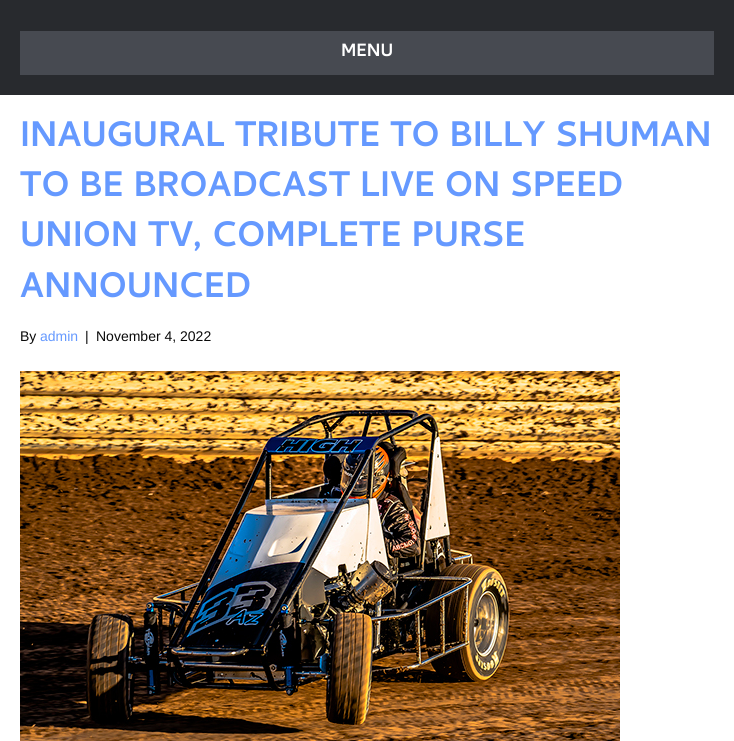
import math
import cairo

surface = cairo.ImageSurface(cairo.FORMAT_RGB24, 734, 741)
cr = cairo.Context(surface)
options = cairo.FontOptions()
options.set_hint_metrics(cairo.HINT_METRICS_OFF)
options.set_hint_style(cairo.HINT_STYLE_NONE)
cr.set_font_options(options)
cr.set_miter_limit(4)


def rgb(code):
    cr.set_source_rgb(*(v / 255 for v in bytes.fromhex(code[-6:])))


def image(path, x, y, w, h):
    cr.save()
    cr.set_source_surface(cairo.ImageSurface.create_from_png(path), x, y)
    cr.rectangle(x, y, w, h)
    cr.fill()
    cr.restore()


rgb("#282a2e")
cr.paint()
rgb("#474a51")
cr.rectangle(20, 31, 694, 44)
cr.fill()
rgb("#ffffff")
cr.rectangle(0, 95, 734, 646)
cr.fill()
image("img/1.png", 20, 371, 600, 370)
cr.select_font_face("Cambay", cairo.FONT_SLANT_NORMAL, cairo.FONT_WEIGHT_BOLD)
cr.set_font_size(18)
cr.move_to(341, 56)
cr.show_text("MENU")
cr.set_font_size(36)
rgb("#6599ff")
for x, y, s in [
    (20, 146, "INAUGURAL TRIBUTE TO BILLY SHUMAN"),
    (20, 196, "TO BE BROADCAST LIVE ON SPEED"),
    (20, 246, "UNION TV, COMPLETE PURSE"),
    (20, 297, "ANNOUNCED"),
]:
    cr.move_to(x, y)
    cr.show_text(s)
cr.select_font_face("Liberation Sans")
cr.set_font_size(14)
rgb("#0a0a0a")
cr.move_to(20, 341)
cr.show_text("By")
rgb("#6599ff")
cr.move_to(40, 341)
cr.show_text("admin")
rgb("#0a0a0a")
cr.move_to(85, 341)
cr.show_text("|")
cr.move_to(96, 341)
cr.show_text("November 4, 2022")
surface.write_to_png("page.png")
